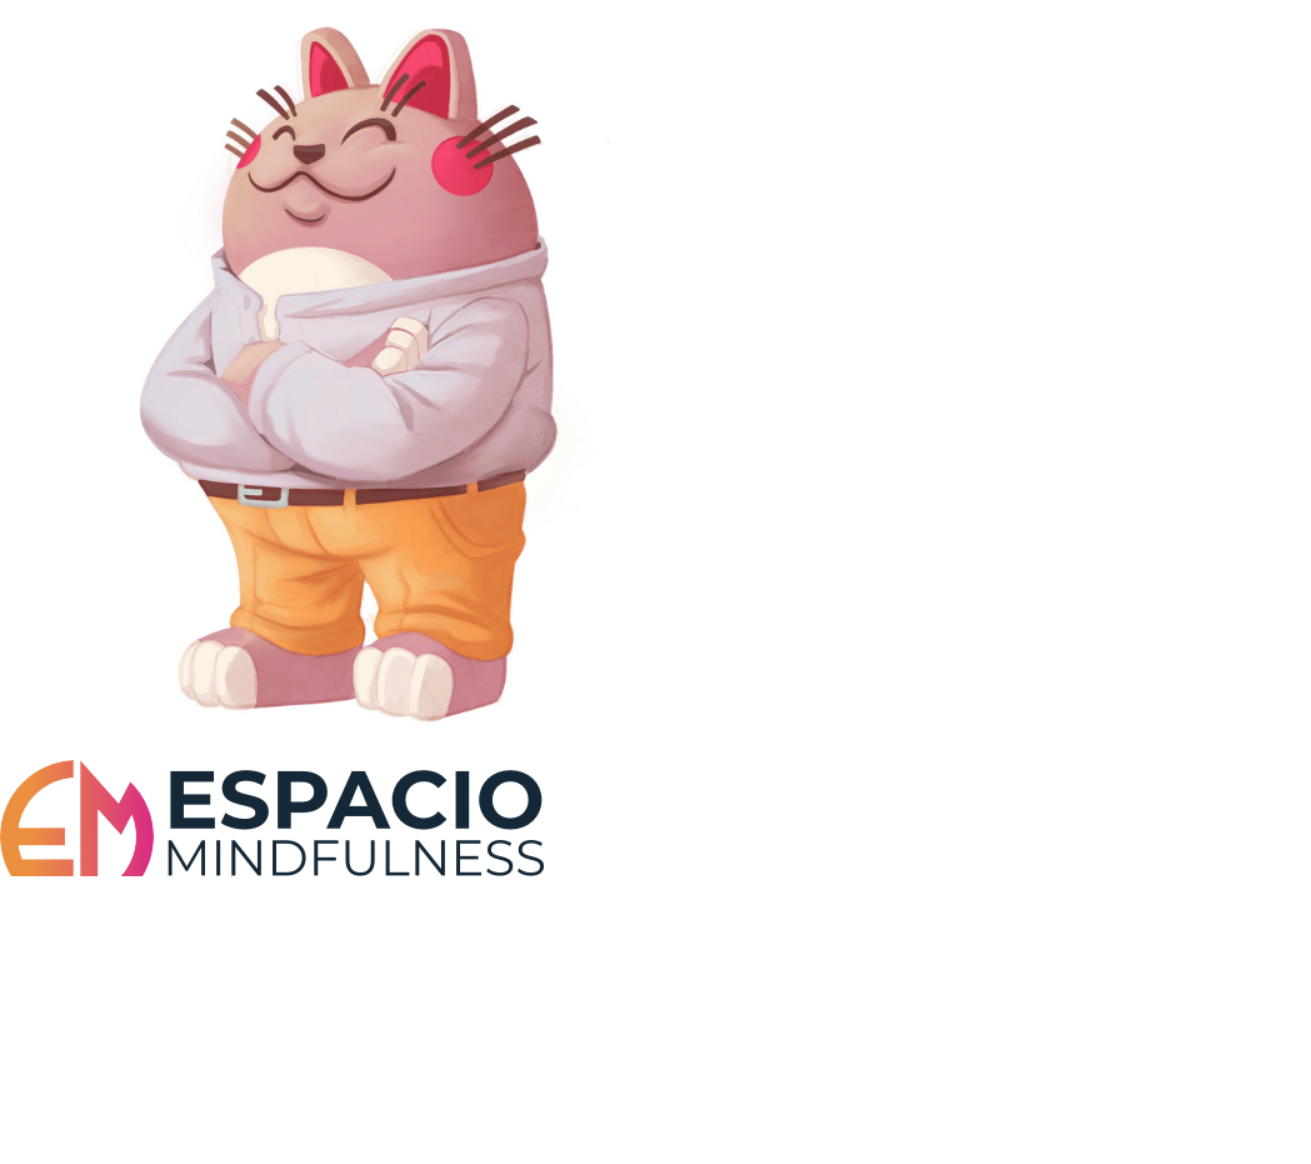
import math
import cairo

surface = cairo.ImageSurface(cairo.FORMAT_RGB24, 1311, 1164)
cr = cairo.Context(surface)
options = cairo.FontOptions()
options.set_hint_metrics(cairo.HINT_METRICS_OFF)
options.set_hint_style(cairo.HINT_STYLE_NONE)
cr.set_font_options(options)
cr.set_miter_limit(4)


def rgb(code):
    cr.set_source_rgb(*(v / 255 for v in bytes.fromhex(code[-6:])))


def image(path, x, y, w, h):
    cr.save()
    cr.set_source_surface(cairo.ImageSurface.create_from_png(path), x, y)
    cr.rectangle(x, y, w, h)
    cr.fill()
    cr.restore()


rgb("#ffffff")
cr.paint()
image("img/1.png", 139, 26, 470, 698)
image("img/2.png", 0, 760, 544, 117)
surface.write_to_png("page.png")
